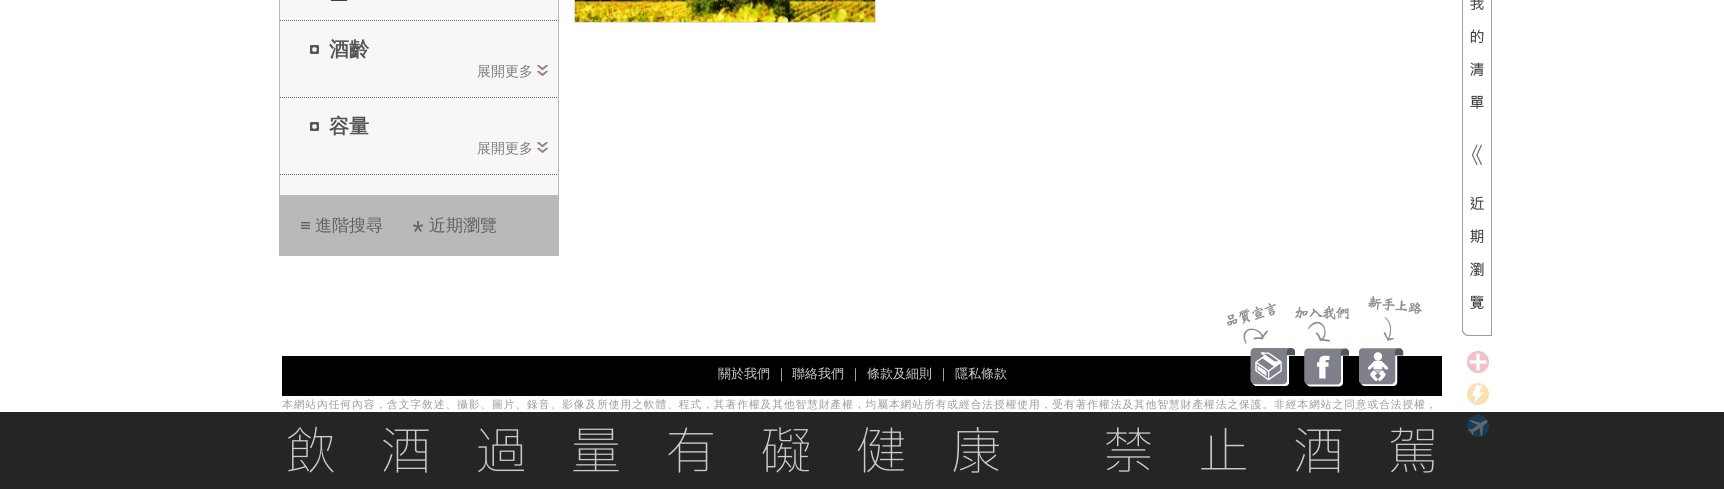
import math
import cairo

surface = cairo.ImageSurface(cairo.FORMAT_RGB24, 1724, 489)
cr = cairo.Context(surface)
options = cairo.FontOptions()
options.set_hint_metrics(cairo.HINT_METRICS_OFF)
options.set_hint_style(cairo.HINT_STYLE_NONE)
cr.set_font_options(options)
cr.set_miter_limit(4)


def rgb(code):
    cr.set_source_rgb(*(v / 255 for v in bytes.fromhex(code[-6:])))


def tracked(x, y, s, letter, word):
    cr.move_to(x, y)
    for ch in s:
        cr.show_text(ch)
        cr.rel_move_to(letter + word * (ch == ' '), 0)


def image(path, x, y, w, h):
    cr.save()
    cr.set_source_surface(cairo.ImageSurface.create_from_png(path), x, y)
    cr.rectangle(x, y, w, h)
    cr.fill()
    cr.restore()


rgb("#ffffff")
cr.paint()
cr.rectangle(574.5, -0.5, 301, 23)
rgb("#dfdfdf")
cr.set_line_width(1)
cr.stroke()
image("img/1.png", 575, 0, 300, 22)
rgb("#f7f7f7")
cr.rectangle(280, 0, 278, 195)
cr.fill()
cr.rectangle(279.5, -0.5, 279, 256)
rgb("#b9b9b9")
cr.stroke()
image("img/2.png", 330, 0, 18, 1)
cr.new_path()
cr.move_to(280, 20.5)
cr.line_to(558, 20.5)
rgb("#69696b")
cr.set_dash([1, 1])
cr.stroke()
image("img/3.png", 310, 45, 9, 9)
image("img/4.png", 537, 65, 11, 11)
cr.new_path()
cr.move_to(280, 97.5)
cr.line_to(558, 97.5)
cr.stroke()
image("img/3.png", 310, 122, 9, 9)
image("img/4.png", 537, 142, 11, 11)
cr.new_path()
cr.move_to(280, 174.5)
cr.line_to(558, 174.5)
cr.stroke()
rgb("#b9b9b9")
cr.rectangle(280, 195, 278, 60)
cr.fill()
image("img/5.png", 301, 222, 9, 7)
image("img/6.png", 413, 221, 10, 11)
image("img/7.png", 1462, 0, 30, 336)
image("img/8.png", 1467, 351, 22, 22)
image("img/9.png", 1467, 383, 22, 22)
rgb("#252525")
cr.rectangle(0, 412, 1724, 77)
cr.fill()
image("img/10.png", 1467, 415, 22, 22)
rgb("#000000")
cr.rectangle(282, 356, 1160, 40)
cr.fill()
image("img/11.png", 1227, 303, 68, 83)
image("img/12.png", 1295, 306, 54, 81)
image("img/13.png", 1359, 296, 63, 90)
cr.select_font_face("WenQuanYi Zen Hei", cairo.FONT_SLANT_NORMAL, cairo.FONT_WEIGHT_BOLD)
cr.set_font_size(20)
rgb("#535556")
cr.move_to(329, 56)
cr.show_text("酒齡")
cr.select_font_face("WenQuanYi Zen Hei Medium")
cr.set_font_size(14)
rgb("#7e7e7e")
cr.move_to(477, 76)
cr.show_text("展開更多")
cr.select_font_face("WenQuanYi Zen Hei", cairo.FONT_SLANT_NORMAL, cairo.FONT_WEIGHT_BOLD)
cr.set_font_size(20)
rgb("#535556")
cr.move_to(329, 133)
cr.show_text("容量")
cr.select_font_face("WenQuanYi Zen Hei Medium")
cr.set_font_size(14)
rgb("#7e7e7e")
cr.move_to(477, 153)
cr.show_text("展開更多")
cr.set_font_size(17)
rgb("#616160")
cr.move_to(315, 231)
cr.show_text("進階搜尋")
cr.move_to(429, 231)
cr.show_text("近期瀏覽")
cr.set_font_size(13)
rgb("#cccccc")
for x, y, s in [
    (718, 378, "關於我們"),
    (775, 378, "｜"),
    (792, 378, "聯絡我們"),
    (849, 378, "｜"),
    (867, 378, "條款及細則"),
    (937, 378, "｜"),
    (955, 378, "隱私條款"),
]:
    cr.move_to(x, y)
    cr.show_text(s)
cr.set_font_size(10.67)
rgb("#999999")
tracked(282, 408, "本網站內任何內容，含文字敘述、攝影、圖片、錄音、影像及所使用之軟體、程式，其著作權及其他智慧財產權，均屬本網站所有或經合法授權使用，受有著作權法及其他智慧財產權法之保護。非經本網站之同意或合法授權，", 1, 0)
cr.select_font_face("IBM Plex Sans JP ExtraLight")
cr.set_font_size(50)
rgb("#cccccc")
tracked(286, 469, "飲酒過量有礙健康 禁止酒駕", 45, 0)
surface.write_to_png("page.png")
